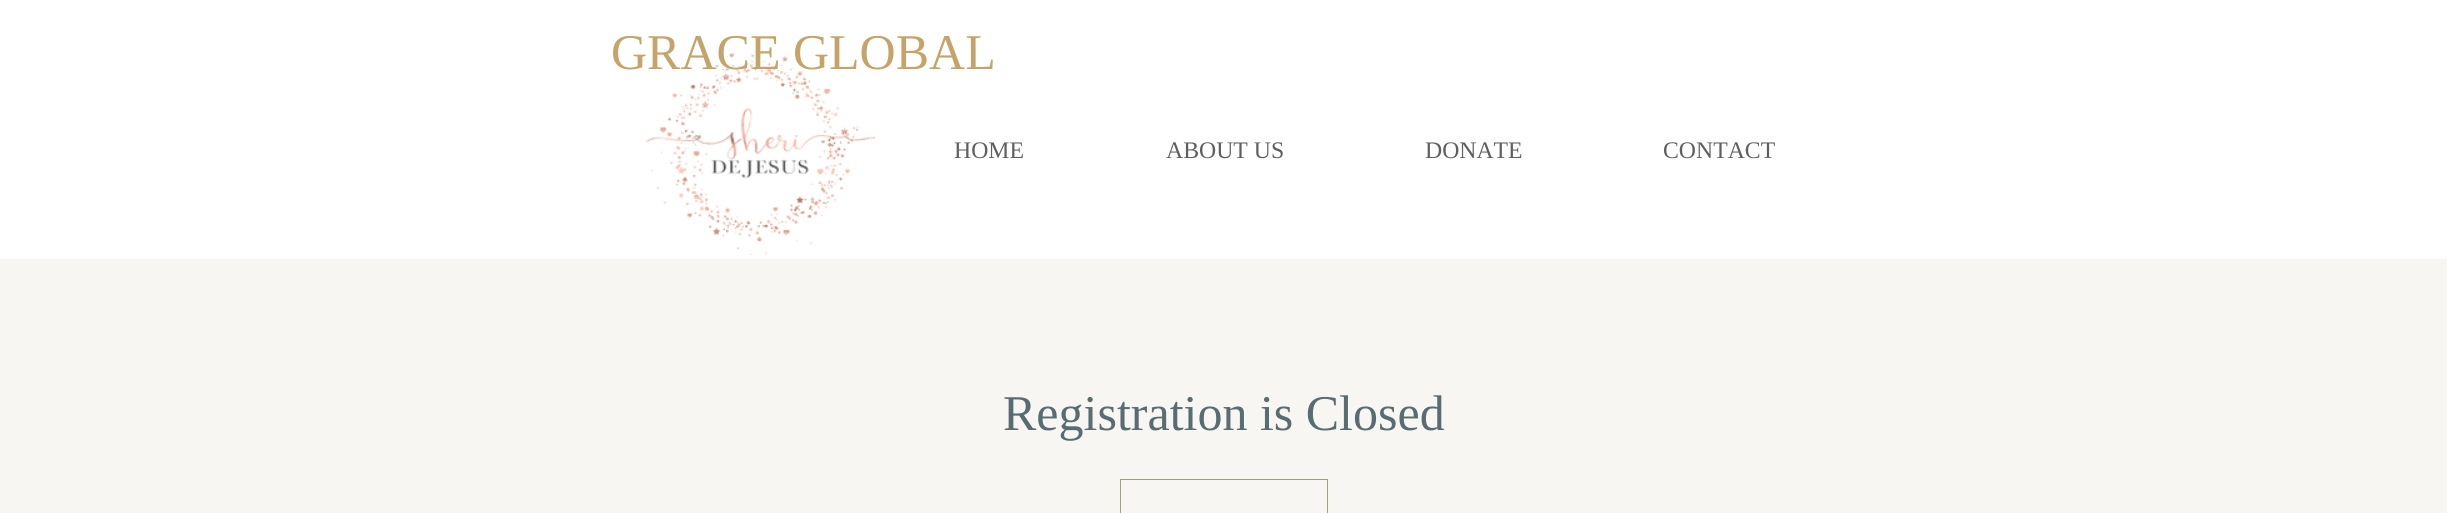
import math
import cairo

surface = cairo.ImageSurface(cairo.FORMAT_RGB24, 2447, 513)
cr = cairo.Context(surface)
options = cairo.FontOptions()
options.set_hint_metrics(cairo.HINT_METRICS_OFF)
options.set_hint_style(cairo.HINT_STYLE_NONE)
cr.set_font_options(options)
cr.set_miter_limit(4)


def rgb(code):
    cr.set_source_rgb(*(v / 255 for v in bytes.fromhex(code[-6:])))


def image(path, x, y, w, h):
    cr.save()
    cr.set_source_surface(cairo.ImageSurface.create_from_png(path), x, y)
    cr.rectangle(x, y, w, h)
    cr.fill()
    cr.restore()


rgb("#ffffff")
cr.paint()
image("img/1.png", 646, 52, 229, 203)
rgb("#f7f6f3")
cr.rectangle(0, 259, 2447, 254)
cr.fill()
cr.rectangle(1120.5, 479.5, 207, 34)
rgb("#a69c80")
cr.set_line_width(1)
cr.stroke()
cr.select_font_face("Liberation Serif")
cr.set_font_size(50)
rgb("#c4a468")
cr.move_to(611, 69)
cr.show_text("GRACE GLOBAL")
cr.set_font_size(23.75)
rgb("#605e5e")
for x, y, s in [
    (954, 158, "HOME"),
    (1166, 158, "ABOUT US"),
    (1425, 158, "DONATE"),
    (1663, 158, "CONTACT"),
]:
    cr.move_to(x, y)
    cr.show_text(s)
cr.set_font_size(50)
rgb("#586d71")
cr.move_to(1003, 430)
cr.show_text("Registration is Closed")
surface.write_to_png("page.png")
